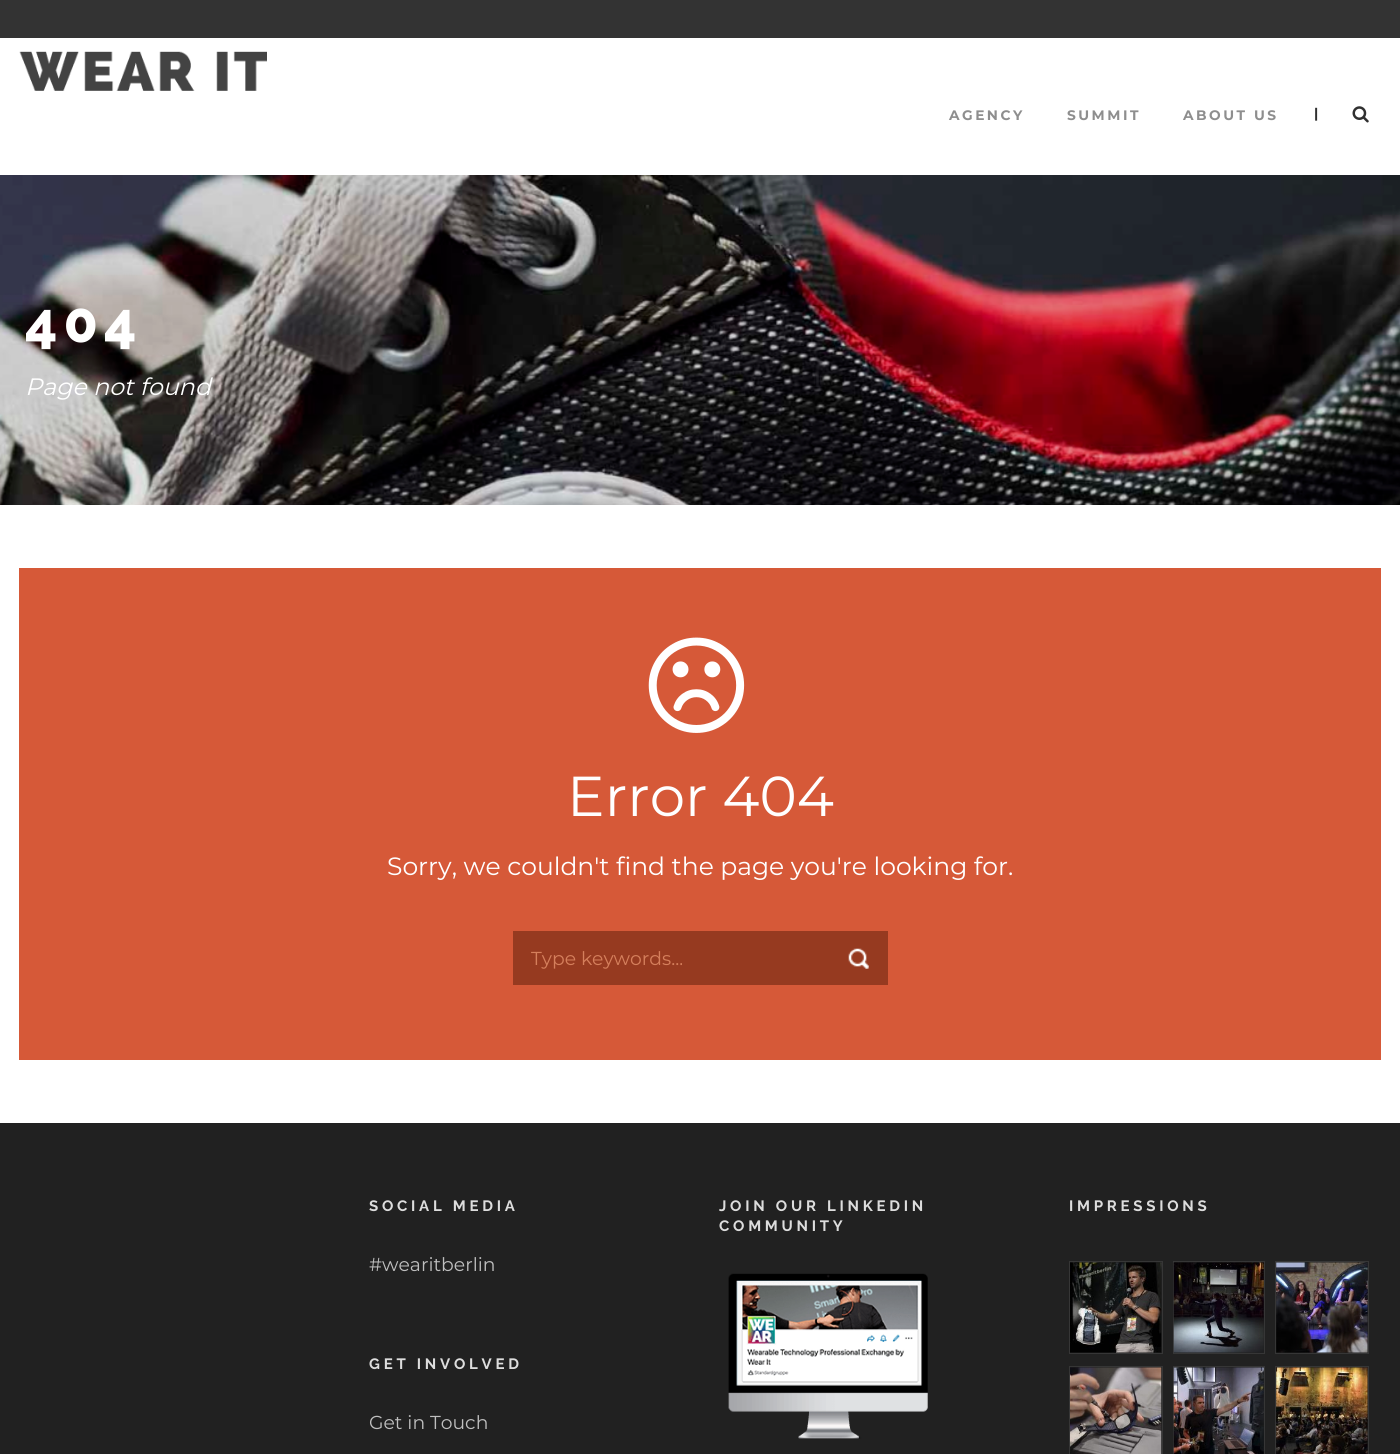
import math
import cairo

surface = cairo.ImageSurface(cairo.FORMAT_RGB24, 1400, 1454)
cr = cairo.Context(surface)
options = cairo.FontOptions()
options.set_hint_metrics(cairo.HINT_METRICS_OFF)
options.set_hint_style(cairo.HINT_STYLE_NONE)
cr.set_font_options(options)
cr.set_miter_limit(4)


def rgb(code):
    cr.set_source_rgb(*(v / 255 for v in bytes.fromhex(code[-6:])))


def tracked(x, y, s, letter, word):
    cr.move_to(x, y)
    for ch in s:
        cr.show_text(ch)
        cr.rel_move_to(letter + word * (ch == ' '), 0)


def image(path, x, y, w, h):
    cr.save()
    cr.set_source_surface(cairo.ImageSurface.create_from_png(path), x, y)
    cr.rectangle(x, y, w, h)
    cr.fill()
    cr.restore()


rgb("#ffffff")
cr.paint()
rgb("#333333")
cr.rectangle(0, 0, 1400, 38)
cr.fill()
image("img/1.png", 19, 51, 248, 40)
image("img/2.png", 1352, 106, 17, 17)
image("img/3.png", 0, 175, 1400, 330)
rgb("#d65938")
cr.rectangle(19, 568, 1362, 492)
cr.fill()
image("img/4.png", 648, 637, 97, 96)
rgb("#963a20")
cr.rectangle(513, 931, 375, 54)
cr.fill()
image("img/5.png", 848, 948, 21, 21)
rgb("#212121")
cr.rectangle(0, 1123, 1400, 331)
cr.fill()
image("img/6.png", 728, 1273, 200, 166)
cr.rectangle(1069.5, 1261.5, 93, 92)
rgb("#363636")
cr.set_line_width(1)
cr.stroke()
image("img/7.png", 1070, 1262, 92, 91)
cr.rectangle(1173.5, 1261.5, 91, 92)
cr.stroke()
image("img/8.png", 1173, 1262, 91, 91)
cr.rectangle(1275.5, 1261.5, 93, 92)
cr.stroke()
image("img/9.png", 1276, 1262, 92, 91)
cr.rectangle(1069.5, 1366.5, 93, 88)
cr.stroke()
image("img/10.png", 1070, 1367, 92, 87)
cr.rectangle(1173.5, 1366.5, 91, 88)
cr.stroke()
image("img/11.png", 1173, 1367, 91, 87)
cr.rectangle(1275.5, 1366.5, 93, 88)
cr.stroke()
image("img/12.png", 1276, 1367, 92, 87)
cr.select_font_face("Montserrat", cairo.FONT_SLANT_NORMAL, cairo.FONT_WEIGHT_BOLD)
cr.set_font_size(13.75)
rgb("#8e8e8e")
for x, y, s in [
    (949, 120, "AGENCY"),
    (1067, 120, "SUMMIT"),
    (1183, 120, "ABOUT US"),
]:
    tracked(x, y, s, 2.5, 0)
rgb("#303030")
cr.move_to(1314, 118)
cr.show_text("|")
cr.select_font_face("Raleway ExtraBold")
cr.set_font_size(56.25)
rgb("#ffffff")
tracked(25, 342, "404", 6, 0)
cr.select_font_face("Montserrat", cairo.FONT_SLANT_ITALIC)
cr.set_font_size(23.75)
cr.move_to(25, 395)
cr.show_text("Page not found")
cr.select_font_face("Montserrat")
cr.set_font_size(56.25)
cr.move_to(567, 816)
cr.show_text("Error 404")
cr.set_font_size(25)
cr.move_to(387, 875)
cr.show_text("Sorry, we couldn't find the page you're looking for.")
cr.set_font_size(18.75)
rgb("#d57f5c")
cr.move_to(531, 965)
cr.show_text("Type keywords...")
cr.select_font_face("Raleway", cairo.FONT_SLANT_NORMAL, cairo.FONT_WEIGHT_BOLD)
cr.set_font_size(15)
rgb("#dddddd")
tracked(369, 1211, "SOCIAL MEDIA", 3.75, 0)
cr.select_font_face("Montserrat")
cr.set_font_size(18.75)
rgb("#bfbfbf")
cr.move_to(369, 1271)
cr.show_text("#wearitberlin")
cr.select_font_face("Raleway", cairo.FONT_SLANT_NORMAL, cairo.FONT_WEIGHT_BOLD)
cr.set_font_size(15)
rgb("#dddddd")
tracked(369, 1369, "GET INVOLVED", 3.75, 0)
cr.select_font_face("Montserrat")
cr.set_font_size(18.75)
rgb("#bfbfbf")
cr.move_to(369, 1429)
cr.show_text("Get in Touch")
cr.select_font_face("Raleway", cairo.FONT_SLANT_NORMAL, cairo.FONT_WEIGHT_BOLD)
cr.set_font_size(15)
rgb("#dddddd")
for x, y, s in [
    (719, 1211, "JOIN OUR LINKEDIN"),
    (719, 1231, "COMMUNITY"),
    (1069, 1211, "IMPRESSIONS"),
]:
    tracked(x, y, s, 3.75, 0)
surface.write_to_png("page.png")
